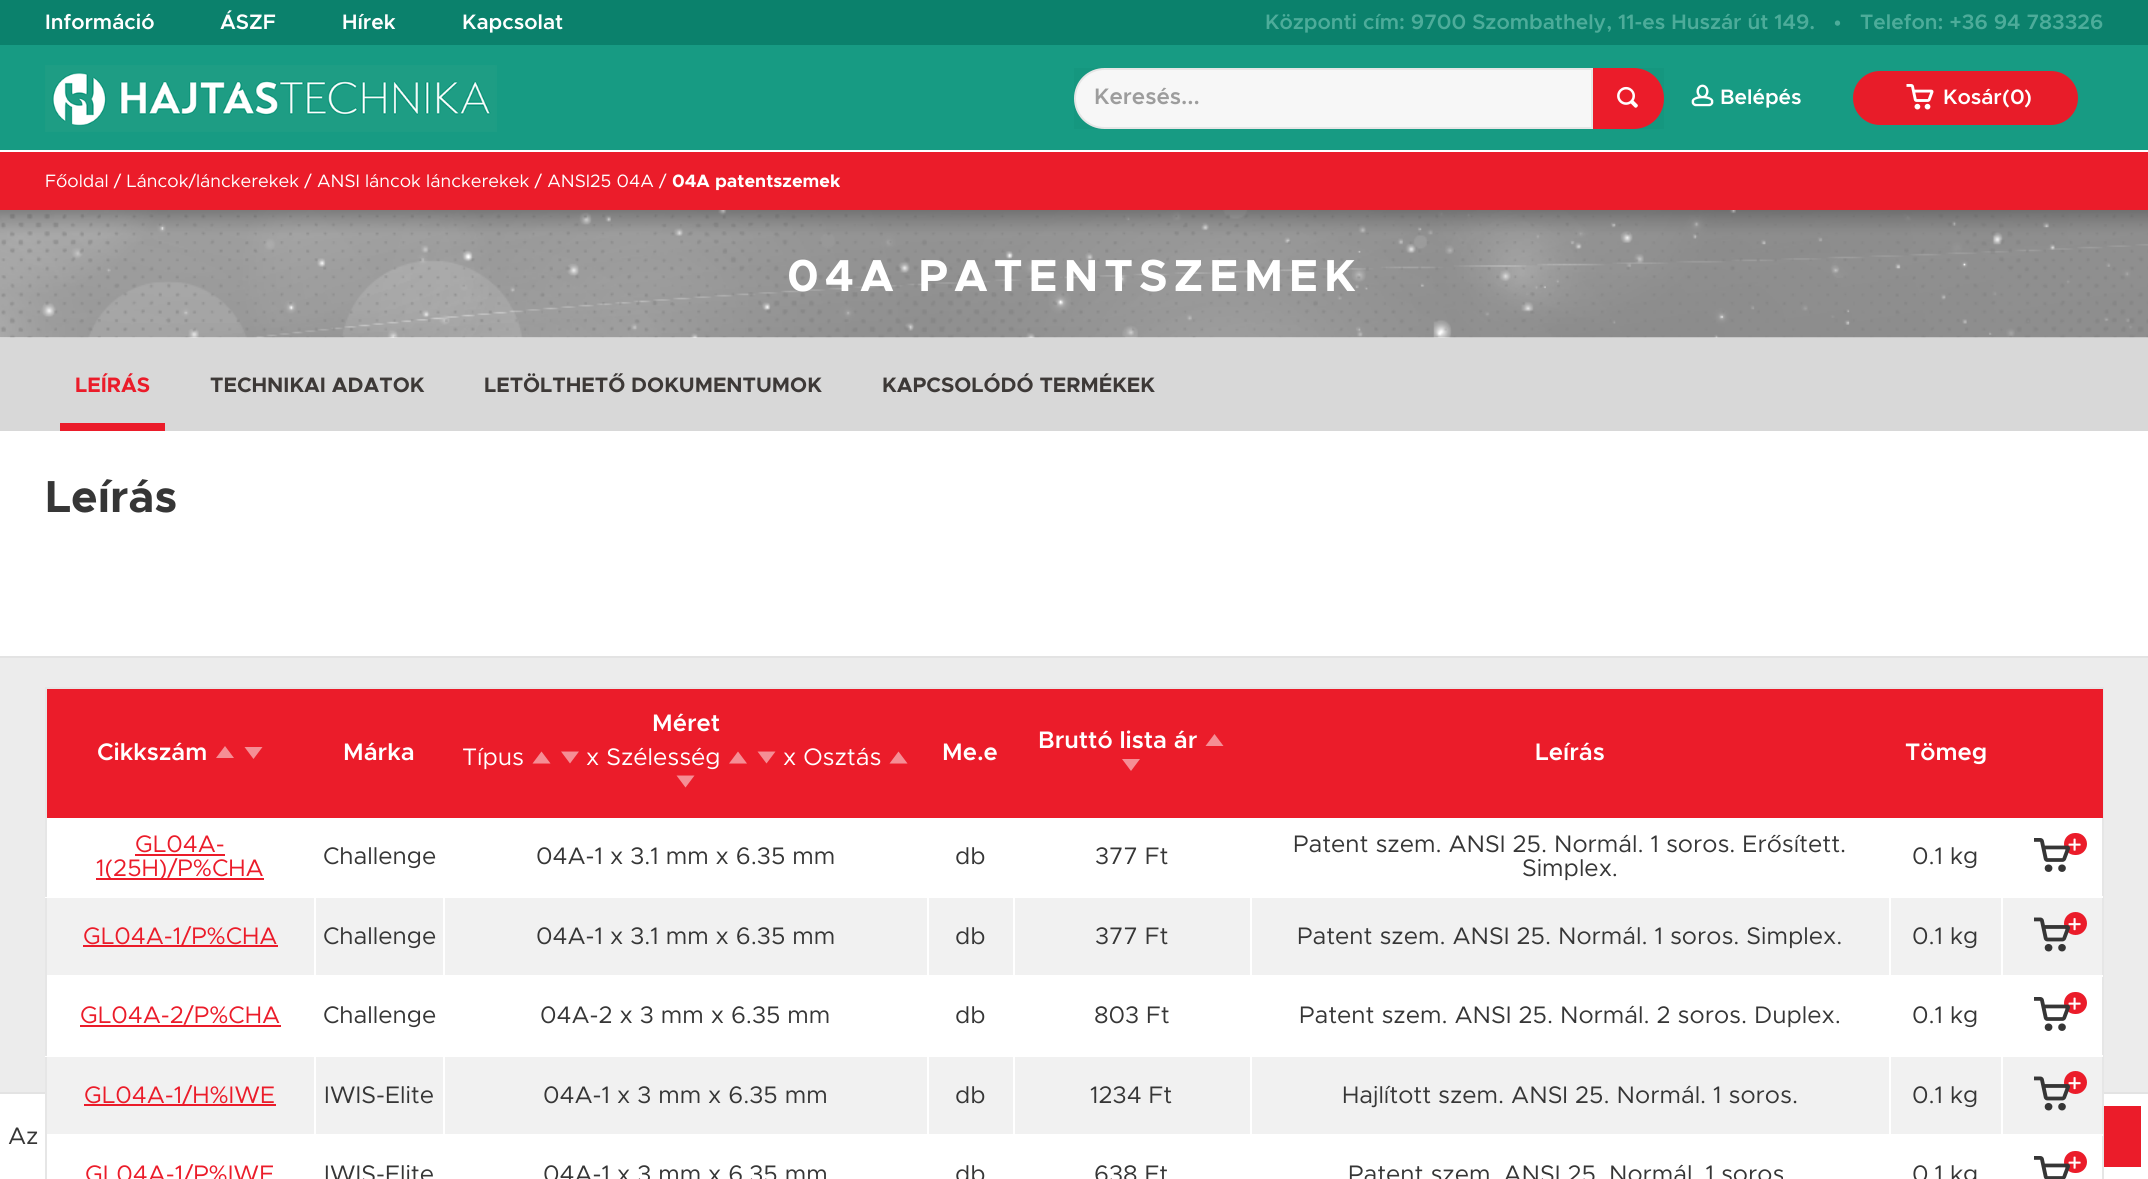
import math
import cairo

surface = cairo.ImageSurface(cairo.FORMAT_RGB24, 2148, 1179)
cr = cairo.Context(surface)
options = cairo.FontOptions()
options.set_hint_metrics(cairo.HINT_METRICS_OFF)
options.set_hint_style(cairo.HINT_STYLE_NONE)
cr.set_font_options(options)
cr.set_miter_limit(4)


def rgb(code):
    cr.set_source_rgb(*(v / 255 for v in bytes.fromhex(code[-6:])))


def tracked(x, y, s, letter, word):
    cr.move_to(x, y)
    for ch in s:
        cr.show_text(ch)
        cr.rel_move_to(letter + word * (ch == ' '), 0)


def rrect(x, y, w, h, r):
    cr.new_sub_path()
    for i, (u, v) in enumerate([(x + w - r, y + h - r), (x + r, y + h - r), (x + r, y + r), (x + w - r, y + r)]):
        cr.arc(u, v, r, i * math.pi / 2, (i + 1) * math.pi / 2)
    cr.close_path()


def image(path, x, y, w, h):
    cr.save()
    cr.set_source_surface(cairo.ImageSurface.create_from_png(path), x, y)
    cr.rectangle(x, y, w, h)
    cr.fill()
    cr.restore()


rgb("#ffffff")
cr.paint()
for x, y, w, h, color in [
    (0, 1092, 2148, 2, "#e3e3e3"),
    (2104, 1106, 37, 61, "#eb1c2a"),
    (0, 45, 2148, 105, "#179b83"),
    (0, 0, 2148, 45, "#0b816c"),
]:
    rgb(color)
    cr.rectangle(x, y, w, h)
    cr.fill()
image("img/1.png", 45, 65, 452, 67)
rgb("#15977f")
cr.rectangle(1074, 68, 590, 61)
cr.fill()
rgb("#f7f7f7")
cr.new_path()
cr.move_to(1104.5, 69)
cr.line_to(1592, 69)
cr.line_to(1592, 128)
cr.line_to(1104.5, 128)
cr.curve_to(1088, 128, 1075, 115, 1075, 98.5)
cr.curve_to(1075, 82, 1088, 69, 1104.5, 69)
cr.close_path()
cr.fill_preserve()
rgb("#e6e6e6")
cr.stroke()
rgb("#eb1c2a")
cr.new_path()
cr.move_to(1593, 68)
cr.line_to(1633.5, 68)
cr.curve_to(1650.5, 68, 1664, 81.5, 1664, 98.5)
cr.curve_to(1664, 115.5, 1650.5, 129, 1633.5, 129)
cr.line_to(1593, 129)
cr.close_path()
cr.fill()
image("img/2.png", 1617, 86, 21, 22)
image("img/3.png", 1691, 84, 23, 23)
rgb("#e81c29")
rrect(1853, 71, 225, 54, 27)
cr.fill()
image("img/4.png", 1906, 84, 28, 26)
rgb("#eb1c2a")
cr.rectangle(0, 152, 2148, 58)
cr.fill()
image("img/5.png", 0, 210, 2148, 128)
for x, y, w, h, color in [
    (0, 338, 2148, 93, "#d8d8d8"),
    (60, 423, 105, 8, "#eb1c2a"),
    (0, 658, 2148, 434, "#ececec"),
    (0, 656, 2148, 2, "#e3e3e3"),
    (45, 687, 2058, 2, "#e6e6e6"),
    (2102, 687, 2, 129, "#e6e6e6"),
    (45, 687, 2, 129, "#e6e6e6"),
    (2102, 816, 2, 363, "#e6e6e6"),
    (47, 689, 2056, 129, "#eb1c2a"),
]:
    rgb(color)
    cr.rectangle(x, y, w, h)
    cr.fill()
rgb("#f58e95")
cr.new_path()
cr.move_to(550.5, 763.5)
cr.line_to(532.5, 763.5)
cr.line_to(541.5, 751.5)
cr.close_path()
cr.move_to(561, 751.5)
cr.line_to(579, 751.5)
cr.line_to(570, 763.5)
cr.close_path()
cr.fill()
cr.new_path()
cr.move_to(747, 763.5)
cr.line_to(729, 763.5)
cr.line_to(738, 751.5)
cr.close_path()
cr.move_to(757.5, 751.5)
cr.line_to(775.5, 751.5)
cr.line_to(766.5, 763.5)
cr.close_path()
cr.fill()
cr.new_path()
cr.move_to(907.5, 763.5)
cr.line_to(889.5, 763.5)
cr.line_to(898.5, 751.5)
cr.close_path()
cr.fill()
cr.new_path()
cr.move_to(676.5, 775.5)
cr.line_to(694.5, 775.5)
cr.line_to(685.5, 787.5)
cr.close_path()
cr.fill()
cr.new_path()
cr.move_to(1223.5, 746)
cr.line_to(1205.5, 746)
cr.line_to(1214.5, 734)
cr.close_path()
cr.fill()
cr.new_path()
cr.move_to(1122, 759)
cr.line_to(1140, 759)
cr.line_to(1131, 771)
cr.close_path()
cr.fill()
cr.new_path()
cr.move_to(234, 758)
cr.line_to(216, 758)
cr.line_to(225, 746)
cr.close_path()
cr.move_to(244.5, 747)
cr.line_to(262.5, 747)
cr.line_to(253.5, 759)
cr.close_path()
cr.fill()
for x, y, w, h, color in [
    (47, 818, 2055, 78, "#ffffff"),
    (314, 975, 1789, 2, "#ffffff"),
    (2001, 896, 2, 81, "#ffffff"),
    (1889, 896, 214, 2, "#ffffff"),
    (1889, 896, 2, 81, "#ffffff"),
    (1250, 896, 640, 2, "#ffffff"),
    (1250, 896, 2, 81, "#ffffff"),
    (1013, 896, 238, 2, "#ffffff"),
    (1013, 896, 2, 81, "#ffffff"),
    (927, 896, 87, 2, "#ffffff"),
    (927, 896, 2, 81, "#ffffff"),
    (443, 896, 486, 2, "#ffffff"),
    (443, 896, 2, 81, "#ffffff"),
    (314, 896, 130, 2, "#ffffff"),
    (314, 896, 2, 81, "#ffffff"),
    (45, 1134, 2, 45, "#e6e6e6"),
    (45, 1134, 2, 2, "#ffffff"),
    (45, 1055, 2, 81, "#e6e6e6"),
    (2001, 1055, 2, 39, "#ffffff"),
    (1889, 1055, 214, 2, "#ffffff"),
    (1889, 1055, 2, 39, "#ffffff"),
    (1250, 1055, 640, 2, "#ffffff"),
    (1250, 1055, 2, 39, "#ffffff"),
    (1013, 1055, 238, 2, "#ffffff"),
    (1013, 1055, 2, 39, "#ffffff"),
    (927, 1055, 87, 2, "#ffffff"),
    (927, 1055, 2, 39, "#ffffff"),
    (443, 1055, 486, 2, "#ffffff"),
    (443, 1055, 2, 39, "#ffffff"),
    (314, 1055, 130, 2, "#ffffff"),
    (314, 1055, 2, 39, "#ffffff"),
    (45, 1055, 270, 2, "#ffffff"),
    (45, 975, 2, 81, "#e6e6e6"),
    (45, 975, 270, 2, "#ffffff"),
    (45, 896, 2, 81, "#e6e6e6"),
    (45, 896, 270, 2, "#ffffff"),
    (45, 816, 2, 81, "#e6e6e6"),
    (135, 854, 90, 2, "#eb1c2a"),
    (96, 878, 168, 2, "#eb1c2a"),
]:
    rgb(color)
    cr.rectangle(x, y, w, h)
    cr.fill()
rrect(2064, 833, 23, 22, 11)
cr.fill()
image("img/7.png", 2068, 838, 13, 13)
image("img/6.png", 2034, 838, 36, 34)
for x, y, w, h, color in [
    (47, 898, 267, 77, "#f1f1f1"),
    (83, 945, 195, 2, "#eb1c2a"),
    (316, 898, 127, 77, "#f1f1f1"),
    (445, 898, 482, 77, "#f1f1f1"),
    (929, 898, 84, 77, "#f1f1f1"),
    (1015, 898, 235, 77, "#f1f1f1"),
    (1252, 898, 637, 77, "#f1f1f1"),
    (1891, 898, 110, 77, "#f1f1f1"),
    (2003, 898, 99, 77, "#f1f1f1"),
]:
    rgb(color)
    cr.rectangle(x, y, w, h)
    cr.fill()
rgb("#eb1c2a")
cr.arc(2075.5, 923.5, 11.5, 0, 2 * math.pi)
cr.fill()
image("img/9.png", 2068, 918, 13, 13)
image("img/8.png", 2034, 917, 36, 35)
rgb("#ffffff")
cr.rectangle(47, 977, 2055, 78)
cr.fill()
rgb("#eb1c2a")
cr.rectangle(80, 1025, 201, 2)
cr.fill()
rrect(2064, 992, 23, 22, 11)
cr.fill()
image("img/7.png", 2068, 997, 13, 13)
image("img/6.png", 2034, 997, 36, 34)
for x, y, w, h, color in [
    (47, 1057, 267, 77, "#f1f1f1"),
    (84, 1104, 192, 2, "#eb1c2a"),
    (316, 1057, 127, 77, "#f1f1f1"),
    (445, 1057, 482, 77, "#f1f1f1"),
    (929, 1057, 84, 77, "#f1f1f1"),
    (1015, 1057, 235, 77, "#f1f1f1"),
    (1252, 1057, 637, 77, "#f1f1f1"),
    (1891, 1057, 110, 77, "#f1f1f1"),
    (2003, 1057, 99, 77, "#f1f1f1"),
    (2102, 1134, 1, 2, "#ffffff"),
]:
    rgb(color)
    cr.rectangle(x, y, w, h)
    cr.fill()
rgb("#eb1c2a")
cr.arc(2075.5, 1082.5, 11.5, 0, 2 * math.pi)
cr.fill()
image("img/9.png", 2068, 1077, 13, 13)
image("img/8.png", 2034, 1076, 36, 35)
rrect(2064, 1151, 23, 22, 11)
cr.fill()
image("img/7.png", 2068, 1156, 13, 13)
image("img/10.png", 2034, 1156, 36, 23)
cr.select_font_face("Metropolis")
cr.set_font_size(24)
rgb("#363636")
cr.move_to(8, 1144)
cr.show_text("Az")
cr.select_font_face("Metropolis SemiBold")
cr.set_font_size(21)
rgb("#ffffff")
for x, y, s in [
    (45, 29, "Információ"),
    (220, 29, "ÁSZF"),
    (342, 29, "Hírek"),
    (462, 29, "Kapcsolat"),
]:
    cr.move_to(x, y)
    cr.show_text(s)
rgb("#4dac9a")
cr.move_to(1265, 29)
cr.show_text("Központi cím: 9700 Szombathely, 11-es Huszár út 149.")
cr.select_font_face("Liberation Serif")
cr.set_font_size(45)
cr.move_to(1830, 38)
cr.show_text("·")
cr.select_font_face("Metropolis SemiBold")
cr.set_font_size(21)
cr.move_to(1860, 29)
cr.show_text("Telefon: +36 94 783326")
cr.set_font_size(22.5)
rgb("#9d9d9d")
cr.move_to(1094, 104)
cr.show_text("Keresés...")
cr.set_font_size(21)
rgb("#ffffff")
for x, y, s in [
    (1720, 104, "Belépés"),
    (1943, 104, "Kosár"),
    (2002, 104, "(0"),
    (2024, 104, ")"),
]:
    cr.move_to(x, y)
    cr.show_text(s)
cr.select_font_face("Metropolis")
cr.set_font_size(18)
cr.move_to(45, 187)
cr.show_text("Főoldal / Láncok/lánckerekek / ANSI láncok lánckerekek / ANSI25 04A /")
cr.select_font_face("Metropolis", cairo.FONT_SLANT_NORMAL, cairo.FONT_WEIGHT_BOLD)
cr.move_to(672, 187)
cr.show_text("04A patentszemek")
cr.set_font_size(45)
tracked(787, 291, "04A PATENTSZEMEK", 6, 0)
cr.set_font_size(21)
rgb("#eb1c2a")
cr.move_to(75, 392)
cr.show_text("LEÍRÁS")
rgb("#3d3937")
for x, y, s in [
    (210, 392, "TECHNIKAI ADATOK"),
    (484, 392, "LETÖLTHETŐ DOKUMENTUMOK"),
    (882, 392, "KAPCSOLÓDÓ TERMÉKEK"),
]:
    cr.move_to(x, y)
    cr.show_text(s)
cr.set_font_size(45)
rgb("#363636")
cr.move_to(45, 512)
cr.show_text("Leírás")
cr.select_font_face("Metropolis SemiBold")
cr.set_font_size(24)
rgb("#ffffff")
cr.move_to(652, 731)
cr.show_text("Méret")
cr.select_font_face("Metropolis")
for x, y, s in [
    (462, 765, "Típus"),
    (586, 765, "x Szélesség"),
    (783, 765, "x Osztás"),
]:
    cr.move_to(x, y)
    cr.show_text(s)
cr.select_font_face("Metropolis SemiBold")
for x, y, s in [
    (1038, 748, "Bruttó lista ár"),
    (97, 760, "Cikkszám"),
    (343, 760, "Márka"),
    (942, 760, "Me.e"),
    (1535, 760, "Leírás"),
    (1905, 760, "Tömeg"),
]:
    cr.move_to(x, y)
    cr.show_text(s)
cr.select_font_face("Metropolis")
rgb("#eb1c2a")
cr.move_to(135, 852)
cr.show_text("GL04A-")
cr.move_to(96, 876)
cr.show_text("1(25H)/P%CHA")
rgb("#363636")
for x, y, s in [
    (323, 864, "Challenge"),
    (536, 864, "04A-1 x 3.1 mm x 6.35 mm"),
    (955, 864, "db"),
    (1095, 864, "377 Ft"),
    (1293, 852, "Patent szem. ANSI 25. Normál. 1 soros. Erősített."),
    (1522, 876, "Simplex."),
    (1912, 864, "0.1 kg"),
]:
    cr.move_to(x, y)
    cr.show_text(s)
rgb("#eb1c2a")
cr.move_to(83, 944)
cr.show_text("GL04A-1/P%CHA")
rgb("#363636")
for x, y, s in [
    (323, 944, "Challenge"),
    (536, 944, "04A-1 x 3.1 mm x 6.35 mm"),
    (955, 944, "db"),
    (1095, 944, "377 Ft"),
    (1297, 944, "Patent szem. ANSI 25. Normál. 1 soros. Simplex."),
    (1912, 944, "0.1 kg"),
]:
    cr.move_to(x, y)
    cr.show_text(s)
rgb("#eb1c2a")
cr.move_to(80, 1023)
cr.show_text("GL04A-2/P%CHA")
rgb("#363636")
for x, y, s in [
    (323, 1023, "Challenge"),
    (540, 1023, "04A-2 x 3 mm x 6.35 mm"),
    (955, 1023, "db"),
    (1094, 1023, "803 Ft"),
    (1299, 1023, "Patent szem. ANSI 25. Normál. 2 soros. Duplex."),
    (1912, 1023, "0.1 kg"),
]:
    cr.move_to(x, y)
    cr.show_text(s)
rgb("#eb1c2a")
cr.move_to(84, 1103)
cr.show_text("GL04A-1/H%IWE")
rgb("#363636")
for x, y, s in [
    (324, 1103, "IWIS-Elite"),
    (543, 1103, "04A-1 x 3 mm x 6.35 mm"),
    (955, 1103, "db"),
    (1090, 1103, "1234 Ft"),
    (1342, 1103, "Hajlított szem. ANSI 25. Normál. 1 soros."),
    (1912, 1103, "0.1 kg"),
]:
    cr.move_to(x, y)
    cr.show_text(s)
rgb("#eb1c2a")
cr.move_to(85, 1182)
cr.show_text("GL04A-1/P%IWE")
rgb("#363636")
for x, y, s in [
    (324, 1182, "IWIS-Elite"),
    (543, 1182, "04A-1 x 3 mm x 6.35 mm"),
    (955, 1182, "db"),
    (1094, 1182, "638 Ft"),
    (1348, 1182, "Patent szem. ANSI 25. Normál. 1 soros"),
    (1912, 1182, "0.1 kg"),
]:
    cr.move_to(x, y)
    cr.show_text(s)
surface.write_to_png("page.png")
